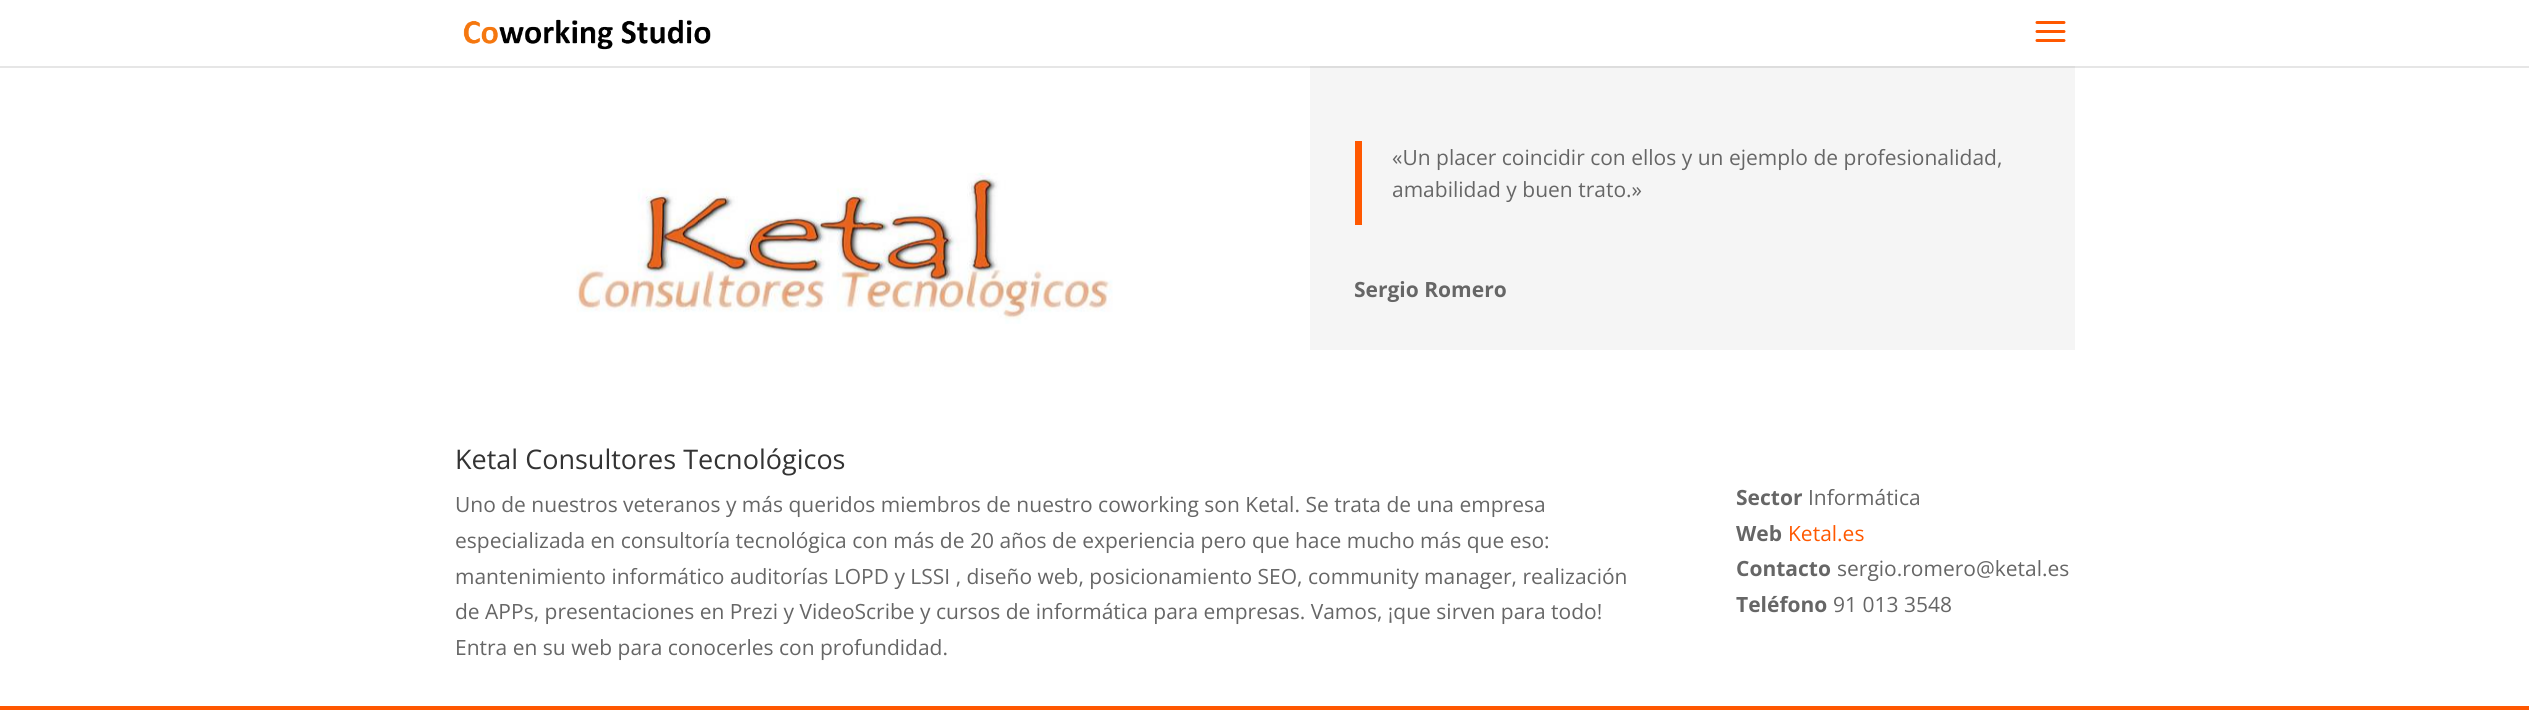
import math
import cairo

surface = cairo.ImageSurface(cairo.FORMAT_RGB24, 2529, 710)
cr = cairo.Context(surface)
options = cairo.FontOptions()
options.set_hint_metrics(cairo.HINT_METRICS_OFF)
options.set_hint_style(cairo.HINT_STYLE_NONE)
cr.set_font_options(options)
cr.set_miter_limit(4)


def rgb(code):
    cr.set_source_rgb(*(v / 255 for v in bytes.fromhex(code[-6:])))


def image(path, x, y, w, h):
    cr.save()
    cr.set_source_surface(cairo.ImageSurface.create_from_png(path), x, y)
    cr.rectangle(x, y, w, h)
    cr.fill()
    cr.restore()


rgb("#ffffff")
cr.paint()
rgb("#e6e6e6")
cr.rectangle(0, 66, 2529, 2)
cr.fill()
image("img/1.png", 463, 19, 248, 31)
image("img/2.png", 2035, 21, 31, 21)
image("img/3.png", 576, 172, 537, 152)
for x, y, w, h, color in [
    (1310, 68, 765, 282, "#f5f5f5"),
    (1310, 66, 765, 2, "#dddddd"),
    (1355, 141, 7, 84, "#ff5800"),
    (0, 706, 2529, 4, "#ff5700"),
]:
    rgb(color)
    cr.rectangle(x, y, w, h)
    cr.fill()
cr.select_font_face("Open Sans")
cr.set_font_size(21)
rgb("#666666")
cr.move_to(1392, 165)
cr.show_text("«Un placer coincidir con ellos y un ejemplo de profesionalidad,")
cr.move_to(1392, 197)
cr.show_text("amabilidad y buen trato.»")
cr.select_font_face("Open Sans", cairo.FONT_SLANT_NORMAL, cairo.FONT_WEIGHT_BOLD)
cr.move_to(1354, 297)
cr.show_text("Sergio Romero")
cr.select_font_face("Open Sans")
cr.set_font_size(27)
rgb("#333333")
cr.move_to(455, 469)
cr.show_text("Ketal Consultores Tecnológicos")
cr.set_font_size(21)
rgb("#666666")
for x, y, s in [
    (455, 512, "Uno de nuestros veteranos y más queridos miembros de nuestro coworking son Ketal. Se trata de una empresa"),
    (455, 548, "especializada en consultoría tecnológica con más de 20 años de experiencia pero que hace mucho más que eso:"),
    (455, 584, "mantenimiento informático auditorías LOPD y LSSI , diseño web, posicionamiento SEO, community manager, realización"),
    (455, 619, "de APPs, presentaciones en Prezi y VideoScribe y cursos de informática para empresas. Vamos, ¡que sirven para todo!"),
    (455, 655, "Entra en su web para conocerles con profundidad."),
]:
    cr.move_to(x, y)
    cr.show_text(s)
cr.select_font_face("Open Sans", cairo.FONT_SLANT_NORMAL, cairo.FONT_WEIGHT_BOLD)
cr.move_to(1736, 505)
cr.show_text("Sector")
cr.select_font_face("Open Sans")
cr.move_to(1808, 505)
cr.show_text("Informática")
cr.select_font_face("Open Sans", cairo.FONT_SLANT_NORMAL, cairo.FONT_WEIGHT_BOLD)
cr.move_to(1736, 541)
cr.show_text("Web")
cr.select_font_face("Open Sans")
rgb("#ff5800")
cr.move_to(1788, 541)
cr.show_text("Ketal.es")
cr.select_font_face("Open Sans", cairo.FONT_SLANT_NORMAL, cairo.FONT_WEIGHT_BOLD)
rgb("#666666")
cr.move_to(1736, 576)
cr.show_text("Contacto")
cr.select_font_face("Open Sans")
cr.move_to(1837, 576)
cr.show_text("sergio.romero@ketal.es")
cr.select_font_face("Open Sans", cairo.FONT_SLANT_NORMAL, cairo.FONT_WEIGHT_BOLD)
cr.move_to(1736, 612)
cr.show_text("Teléfono")
cr.select_font_face("Open Sans")
cr.move_to(1833, 612)
cr.show_text("91 013 3548")
surface.write_to_png("page.png")
